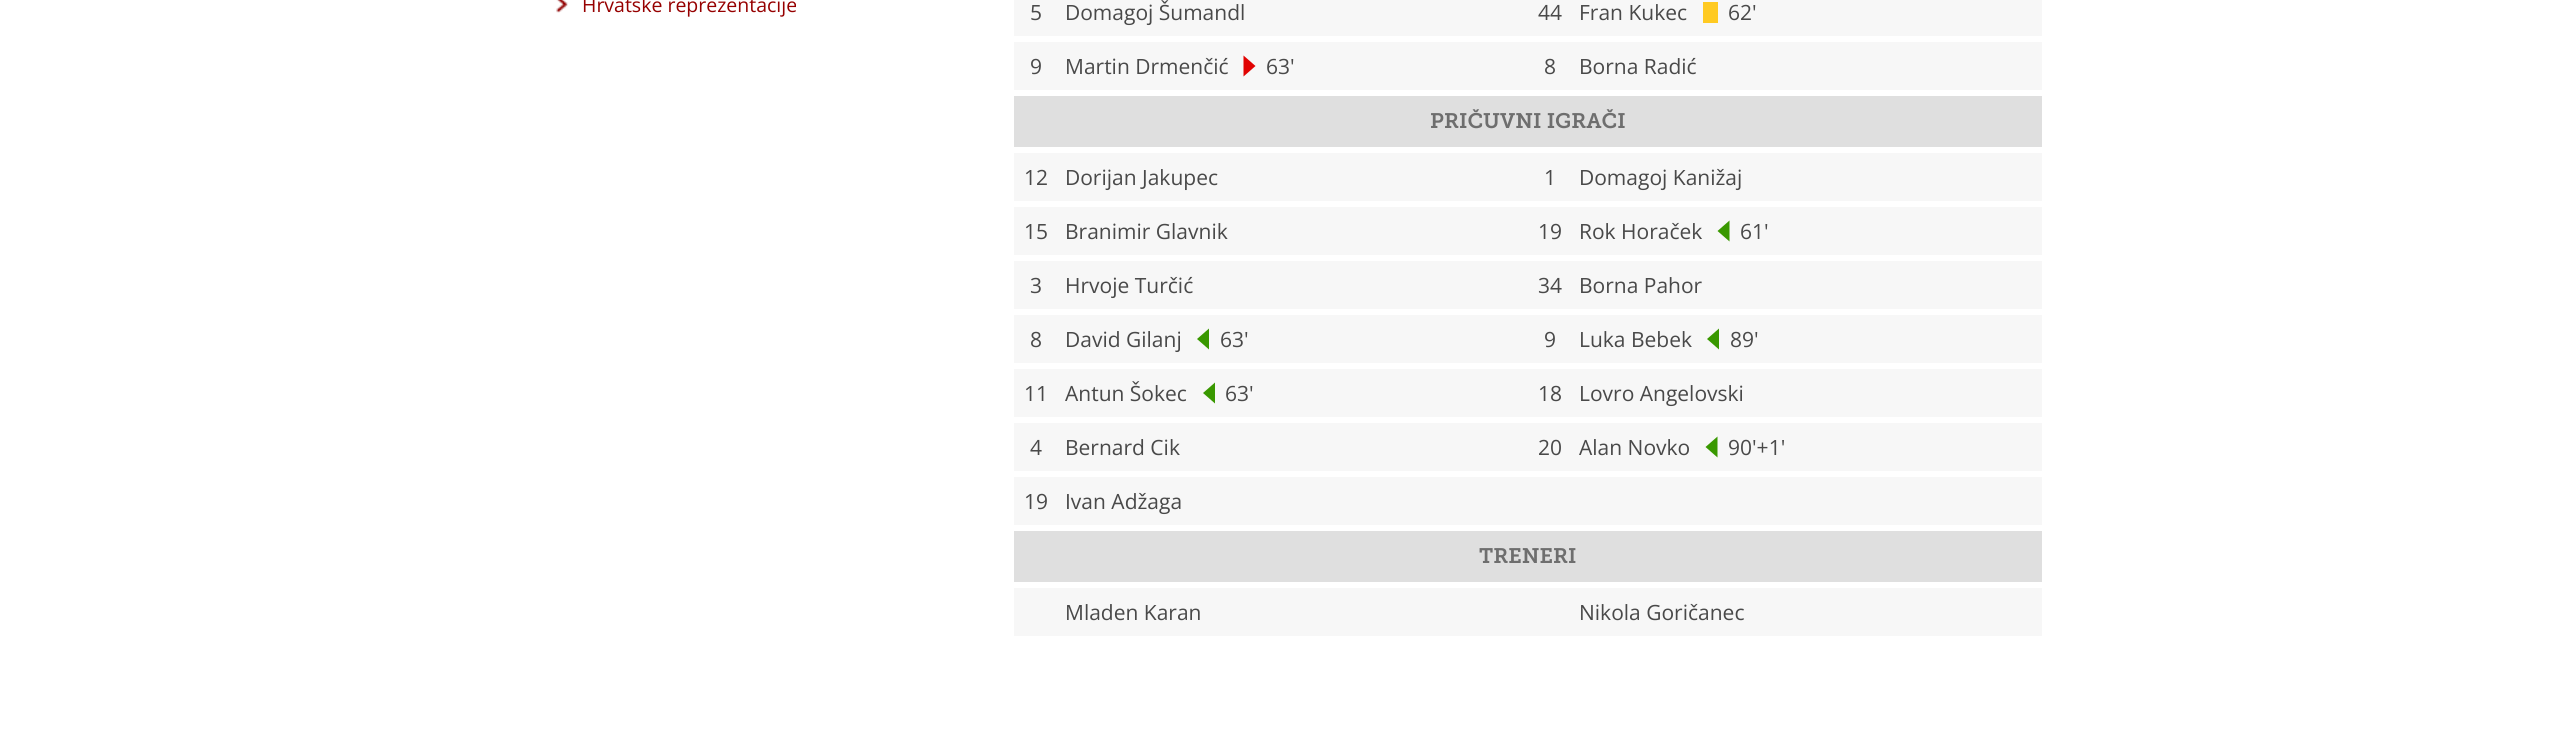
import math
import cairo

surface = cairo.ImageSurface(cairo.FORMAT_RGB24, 2573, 743)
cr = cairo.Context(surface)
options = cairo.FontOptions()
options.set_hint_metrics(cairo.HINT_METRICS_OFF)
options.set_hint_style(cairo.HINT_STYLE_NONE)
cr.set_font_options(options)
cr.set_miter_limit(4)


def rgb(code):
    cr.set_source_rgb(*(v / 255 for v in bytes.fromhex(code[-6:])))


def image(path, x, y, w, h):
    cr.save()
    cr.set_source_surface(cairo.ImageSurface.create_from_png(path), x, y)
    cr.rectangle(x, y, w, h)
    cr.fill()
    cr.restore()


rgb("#ffffff")
cr.paint()
image("img/1.png", 556, 0, 12, 13)
for x, y, w, h, color in [
    (1014, 0, 1028, 36, "#f7f7f7"),
    (1703, 2, 15, 21, "#ffca22"),
    (1014, 42, 1028, 48, "#f7f7f7"),
]:
    rgb(color)
    cr.rectangle(x, y, w, h)
    cr.fill()
rgb("#e10302")
cr.new_path()
cr.move_to(1243.5, 76.5)
cr.line_to(1243.5, 55.5)
cr.line_to(1255.5, 66)
cr.close_path()
cr.fill()
for x, y, w, h, color in [
    (1014, 96, 1028, 51, "#dfdfdf"),
    (1014, 153, 1028, 48, "#f7f7f7"),
    (1014, 207, 1028, 48, "#f7f7f7"),
]:
    rgb(color)
    cr.rectangle(x, y, w, h)
    cr.fill()
rgb("#399800")
cr.new_path()
cr.move_to(1729.5, 220.5)
cr.line_to(1729.5, 241.5)
cr.line_to(1717.5, 231)
cr.close_path()
cr.fill()
rgb("#f7f7f7")
cr.rectangle(1014, 261, 1028, 48)
cr.fill()
cr.rectangle(1014, 315, 1028, 48)
cr.fill()
rgb("#399800")
cr.new_path()
cr.move_to(1209, 328.5)
cr.line_to(1209, 349.5)
cr.line_to(1197, 339)
cr.close_path()
cr.fill()
cr.new_path()
cr.move_to(1719, 328.5)
cr.line_to(1719, 349.5)
cr.line_to(1707, 339)
cr.close_path()
cr.fill()
rgb("#f7f7f7")
cr.rectangle(1014, 369, 1028, 48)
cr.fill()
rgb("#399800")
cr.new_path()
cr.move_to(1215, 382.5)
cr.line_to(1215, 403.5)
cr.line_to(1203, 393)
cr.close_path()
cr.fill()
rgb("#f7f7f7")
cr.rectangle(1014, 423, 1028, 48)
cr.fill()
rgb("#399800")
cr.new_path()
cr.move_to(1717.5, 436.5)
cr.line_to(1717.5, 457.5)
cr.line_to(1705.5, 447)
cr.close_path()
cr.fill()
for x, y, w, h, color in [
    (1014, 477, 1028, 48, "#f7f7f7"),
    (1014, 531, 1028, 51, "#dfdfdf"),
    (1014, 588, 1028, 48, "#f7f7f7"),
]:
    rgb(color)
    cr.rectangle(x, y, w, h)
    cr.fill()
cr.select_font_face("Open Sans")
cr.set_font_size(19.5)
rgb("#960000")
cr.move_to(582, 12)
cr.show_text("Hrvatske reprezentacije")
cr.set_font_size(21)
rgb("#494949")
for x, y, s in [
    (1030, 20, "5"),
    (1065, 20, "Domagoj Šumandl"),
    (1538, 20, "44"),
    (1579, 20, "Fran Kukec"),
    (1728, 20, "62'"),
    (1030, 74, "9"),
    (1065, 74, "Martin Drmenčić"),
    (1266, 74, "63'"),
    (1544, 74, "8"),
    (1579, 74, "Borna Radić"),
]:
    cr.move_to(x, y)
    cr.show_text(s)
cr.select_font_face("Museo Slab")
rgb("#6e6e6e")
cr.move_to(1430, 128)
cr.show_text("PRIČUVNI IGRAČI")
cr.select_font_face("Open Sans")
rgb("#494949")
for x, y, s in [
    (1024, 185, "12"),
    (1065, 185, "Dorijan Jakupec"),
    (1544, 185, "1"),
    (1579, 185, "Domagoj Kanižaj"),
    (1024, 239, "15"),
    (1065, 239, "Branimir Glavnik"),
    (1538, 239, "19"),
    (1579, 239, "Rok Horaček"),
    (1740, 239, "61'"),
    (1030, 293, "3"),
    (1065, 293, "Hrvoje Turčić"),
    (1538, 293, "34"),
    (1579, 293, "Borna Pahor"),
    (1030, 347, "8"),
    (1065, 347, "David Gilanj"),
    (1220, 347, "63'"),
    (1544, 347, "9"),
    (1579, 347, "Luka Bebek"),
    (1730, 347, "89'"),
    (1024, 401, "11"),
    (1065, 401, "Antun Šokec"),
    (1225, 401, "63'"),
    (1538, 401, "18"),
    (1579, 401, "Lovro Angelovski"),
    (1030, 455, "4"),
    (1065, 455, "Bernard Cik"),
    (1538, 455, "20"),
    (1579, 455, "Alan Novko"),
    (1728, 455, "90'+1'"),
    (1024, 509, "19"),
    (1065, 509, "Ivan Adžaga"),
]:
    cr.move_to(x, y)
    cr.show_text(s)
cr.select_font_face("Museo Slab")
rgb("#6e6e6e")
cr.move_to(1479, 563)
cr.show_text("TRENERI")
cr.select_font_face("Open Sans")
rgb("#494949")
cr.move_to(1065, 620)
cr.show_text("Mladen Karan")
cr.move_to(1579, 620)
cr.show_text("Nikola Goričanec")
surface.write_to_png("page.png")
